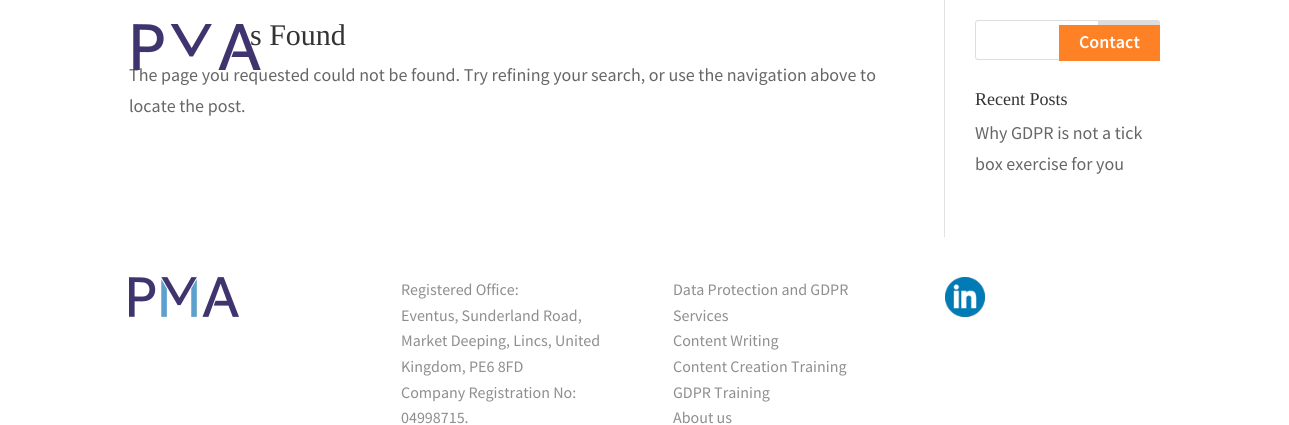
import math
import cairo

surface = cairo.ImageSurface(cairo.FORMAT_RGB24, 1289, 425)
cr = cairo.Context(surface)
options = cairo.FontOptions()
options.set_hint_metrics(cairo.HINT_METRICS_OFF)
options.set_hint_style(cairo.HINT_STYLE_NONE)
cr.set_font_options(options)
cr.set_miter_limit(4)


def rgb(code):
    cr.set_source_rgb(*(v / 255 for v in bytes.fromhex(code[-6:])))


def rrect(x, y, w, h, r):
    cr.new_sub_path()
    for i, (u, v) in enumerate([(x + w - r, y + h - r), (x + r, y + h - r), (x + r, y + r), (x + w - r, y + r)]):
        cr.arc(u, v, r, i * math.pi / 2, (i + 1) * math.pi / 2)
    cr.close_path()


def image(path, x, y, w, h):
    cr.save()
    cr.set_source_surface(cairo.ImageSurface.create_from_png(path), x, y)
    cr.rectangle(x, y, w, h)
    cr.fill()
    cr.restore()


rgb("#ffffff")
cr.paint()
rgb("#e2e2e2")
cr.rectangle(944, 0, 1, 237)
cr.fill()
rrect(975.5, 20.5, 184, 39, 2.5)
rgb("#dddddd")
cr.set_line_width(1)
cr.stroke()
cr.new_path()
cr.move_to(1098.5, 20.5)
cr.line_to(1157, 20.5)
cr.curve_to(1158.5, 20.5, 1159.5, 21.5, 1159.5, 23)
cr.line_to(1159.5, 57)
cr.curve_to(1159.5, 58.5, 1158.5, 59.5, 1157, 59.5)
cr.line_to(1098.5, 59.5)
cr.close_path()
cr.fill_preserve()
cr.stroke()
image("img/1.png", 129, 277, 110, 40)
image("img/2.png", 945, 277, 40, 40)
rgb("#ff8125")
cr.rectangle(1059, 25, 101, 36)
cr.fill()
cr.select_font_face("Liberation Serif")
cr.set_font_size(30)
rgb("#333333")
cr.move_to(250, 45)
cr.show_text("s Found")
cr.select_font_face("Source Sans Pro")
cr.set_font_size(18)
rgb("#666666")
cr.move_to(129, 81)
cr.show_text("The page you requested could not be found. Try refining your search, or use the navigation above to")
cr.move_to(129, 112)
cr.show_text("locate the post.")
cr.select_font_face("Liberation Serif")
rgb("#333333")
cr.move_to(975, 105)
cr.show_text("Recent Posts")
cr.select_font_face("Source Sans Pro")
rgb("#666666")
cr.move_to(975, 139)
cr.show_text("Why GDPR is not a tick")
cr.move_to(975, 170)
cr.show_text("box exercise for you")
cr.set_font_size(16)
rgb("#8e8e8e")
for x, y, s in [
    (401, 295, "Registered Office:"),
    (401, 321, "Eventus, Sunderland Road,"),
    (401, 346, "Market Deeping, Lincs, United"),
    (401, 372, "Kingdom, PE6 8FD"),
    (401, 398, "Company Registration No:"),
    (401, 423, "04998715."),
    (673, 295, "Data Protection and GDPR"),
    (673, 321, "Services"),
    (673, 346, "Content Writing"),
    (673, 372, "Content Creation Training"),
    (673, 398, "GDPR Training"),
    (673, 423, "About us"),
]:
    cr.move_to(x, y)
    cr.show_text(s)
image("img/3.png", 133, 24, 128, 46)
cr.select_font_face("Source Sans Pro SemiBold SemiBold")
cr.set_font_size(18)
rgb("#ffffff")
cr.move_to(1079, 48)
cr.show_text("Contact")
surface.write_to_png("page.png")
